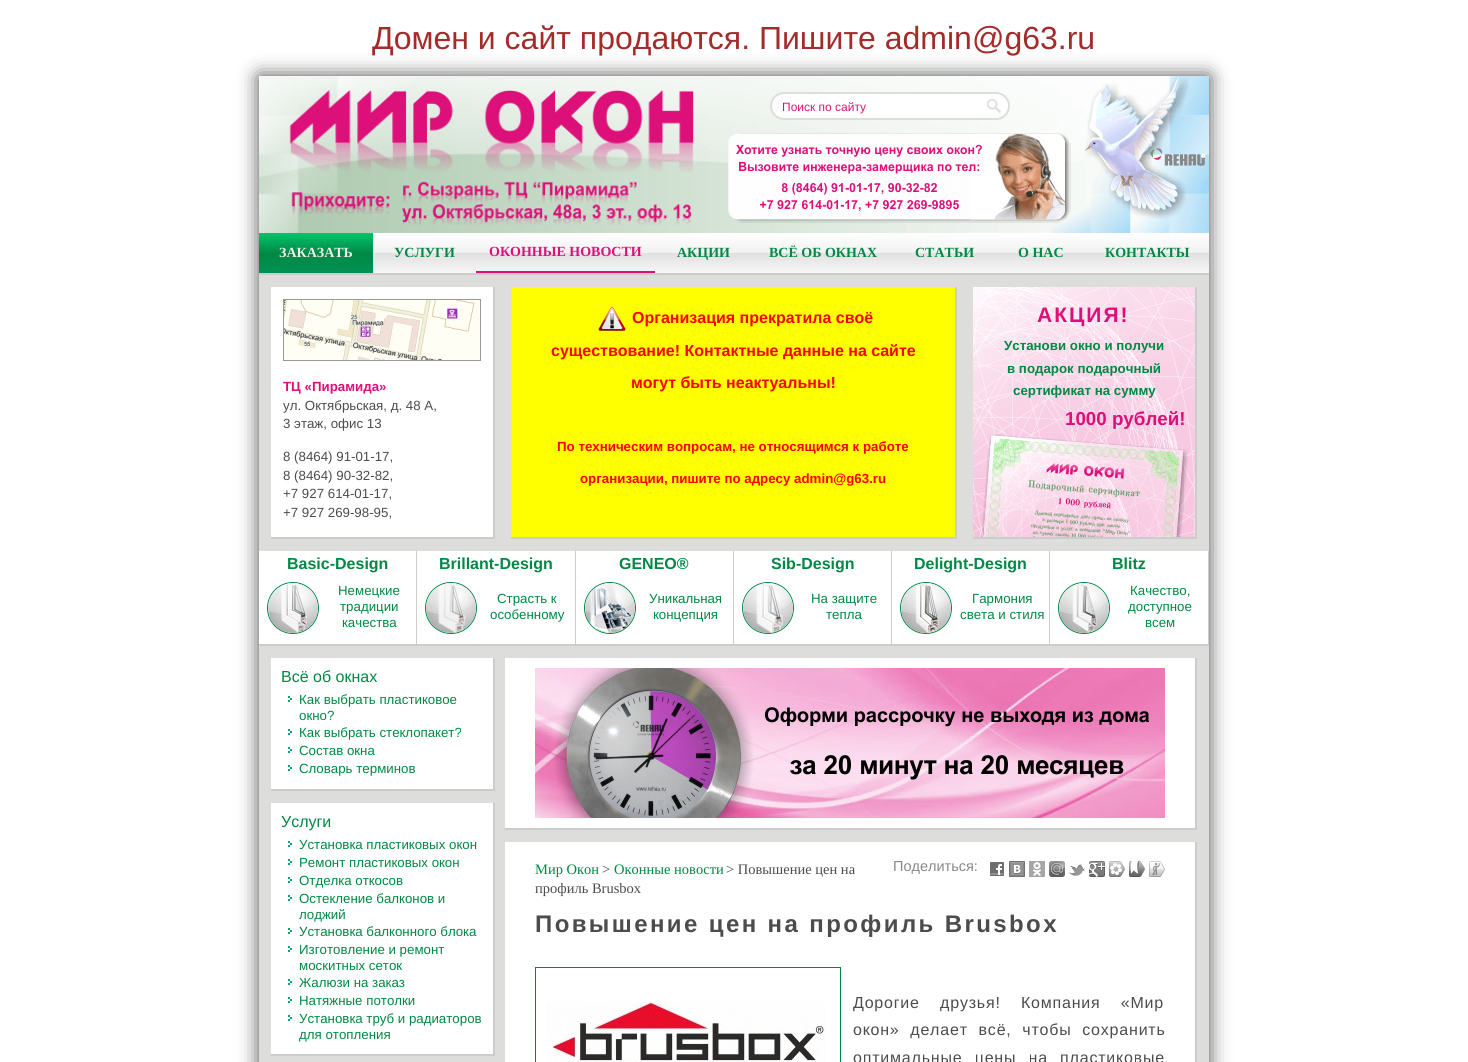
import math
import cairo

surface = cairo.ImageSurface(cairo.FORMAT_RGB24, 1468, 1062)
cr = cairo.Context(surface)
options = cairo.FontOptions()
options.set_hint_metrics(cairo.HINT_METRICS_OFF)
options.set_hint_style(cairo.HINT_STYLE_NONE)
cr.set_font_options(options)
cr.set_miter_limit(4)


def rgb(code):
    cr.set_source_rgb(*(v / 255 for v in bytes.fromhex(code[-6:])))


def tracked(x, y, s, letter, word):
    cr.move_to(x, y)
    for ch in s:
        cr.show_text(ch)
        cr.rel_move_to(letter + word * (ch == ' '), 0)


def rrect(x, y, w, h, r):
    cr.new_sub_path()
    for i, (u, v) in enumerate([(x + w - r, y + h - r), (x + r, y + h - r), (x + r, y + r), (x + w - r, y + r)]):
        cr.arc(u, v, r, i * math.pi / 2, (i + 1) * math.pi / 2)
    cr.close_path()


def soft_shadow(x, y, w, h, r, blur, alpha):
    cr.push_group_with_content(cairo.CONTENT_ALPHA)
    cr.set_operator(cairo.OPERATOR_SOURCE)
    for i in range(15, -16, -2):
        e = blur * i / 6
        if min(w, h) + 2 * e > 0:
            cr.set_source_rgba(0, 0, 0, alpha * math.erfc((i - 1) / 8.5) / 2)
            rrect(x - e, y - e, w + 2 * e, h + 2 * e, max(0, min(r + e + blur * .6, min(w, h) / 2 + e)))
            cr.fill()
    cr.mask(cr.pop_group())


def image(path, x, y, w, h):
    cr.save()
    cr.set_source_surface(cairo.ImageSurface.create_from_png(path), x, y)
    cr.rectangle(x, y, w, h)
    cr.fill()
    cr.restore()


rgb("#ffffff")
cr.paint()
rgb("#4c4c4c")
soft_shadow(259, 76, 950, 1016, 0, 10, 1)
rgb("#dddddc")
cr.rectangle(259, 275, 950, 787)
cr.fill()
image("img/1.png", 259, 76, 451, 157)
image("img/2.png", 259, 79, 440, 154)
image("img/3.png", 710, 76, 499, 157)
rgb("#ffffff")
rrect(771, 93, 238, 26, 13)
cr.fill_preserve()
rgb("#dddddc")
cr.stroke()
image("img/4.png", 987, 99, 14, 14)
gradient = cairo.LinearGradient(734, 233, 734, 273)
gradient.add_color_stop_rgba(0, 1, 1, 1, 1)
gradient.add_color_stop_rgba(0.5, 0.945, 0.945, 0.945, 1)
gradient.add_color_stop_rgba(0.51, 0.882, 0.882, 0.882, 1)
gradient.add_color_stop_rgba(1, 0.965, 0.965, 0.965, 1)
cr.set_source(gradient)
cr.rectangle(373, 233, 836, 40)
cr.fill()
rgb("#cccccc")
cr.rectangle(259, 273, 950, 2)
cr.fill()
gradient = cairo.LinearGradient(316, 233, 316, 273)
gradient.add_color_stop_rgba(0, 0, 0.773, 0.42, 1)
gradient.add_color_stop_rgba(0.51, 0, 0.533, 0.267, 1)
gradient.add_color_stop_rgba(1, 0, 0.573, 0.333, 1)
cr.set_source(gradient)
cr.rectangle(259, 233, 114, 40)
cr.fill()
for x, y, w, h, color in [
    (476, 271, 179, 2, "#dd107a"),
    (271, 287, 222, 250, "#ffffff"),
    (493, 287, 2, 252, "#cccccc"),
    (271, 537, 224, 2, "#cccccc"),
]:
    rgb(color)
    cr.rectangle(x, y, w, h)
    cr.fill()
cr.rectangle(283.5, 299.5, 197, 61)
rgb("#999999")
cr.set_line_width(1)
cr.stroke()
image("img/5.png", 284, 300, 196, 60)
for x, y, w, h, color in [
    (511, 287, 444, 250, "#ffff00"),
    (955, 287, 2, 252, "#cccccc"),
    (511, 537, 446, 2, "#cccccc"),
]:
    rgb(color)
    cr.rectangle(x, y, w, h)
    cr.fill()
image("img/6.png", 598, 307, 28, 24)
cr.rectangle(1195, 287, 2, 252)
cr.fill()
cr.rectangle(973, 537, 224, 2)
cr.fill()
image("img/7.png", 973, 287, 222, 250)
for x, y, w, h, color in [
    (259, 551, 157, 93, "#ffffff"),
    (416, 551, 1, 95, "#cccccc"),
    (259, 644, 158, 2, "#cccccc"),
]:
    rgb(color)
    cr.rectangle(x, y, w, h)
    cr.fill()
cr.arc(293, 608, 25.5, 0, 2 * math.pi)
rgb("#008844")
cr.stroke()
image("img/8.png", 268, 583, 50, 50)
for x, y, w, h, color in [
    (417, 551, 158, 93, "#ffffff"),
    (575, 551, 1, 95, "#cccccc"),
    (417, 644, 159, 2, "#cccccc"),
]:
    rgb(color)
    cr.rectangle(x, y, w, h)
    cr.fill()
cr.arc(451, 608, 25.5, 0, 2 * math.pi)
rgb("#008844")
cr.stroke()
image("img/9.png", 426, 583, 50, 50)
for x, y, w, h, color in [
    (576, 551, 157, 93, "#ffffff"),
    (733, 551, 1, 95, "#cccccc"),
    (576, 644, 158, 2, "#cccccc"),
]:
    rgb(color)
    cr.rectangle(x, y, w, h)
    cr.fill()
cr.arc(610, 608, 25.5, 0, 2 * math.pi)
rgb("#008844")
cr.stroke()
image("img/10.png", 585, 583, 50, 50)
for x, y, w, h, color in [
    (734, 551, 157, 93, "#ffffff"),
    (891, 551, 1, 95, "#cccccc"),
    (734, 644, 158, 2, "#cccccc"),
]:
    rgb(color)
    cr.rectangle(x, y, w, h)
    cr.fill()
cr.arc(768, 608, 25.5, 0, 2 * math.pi)
rgb("#008844")
cr.stroke()
image("img/11.png", 743, 583, 50, 50)
for x, y, w, h, color in [
    (892, 551, 157, 93, "#ffffff"),
    (1049, 551, 1, 95, "#cccccc"),
    (892, 644, 158, 2, "#cccccc"),
]:
    rgb(color)
    cr.rectangle(x, y, w, h)
    cr.fill()
cr.arc(926, 608, 25.5, 0, 2 * math.pi)
rgb("#008844")
cr.stroke()
image("img/12.png", 901, 583, 50, 50)
for x, y, w, h, color in [
    (1050, 551, 158, 93, "#ffffff"),
    (1208, 551, 1, 95, "#cccccc"),
    (1050, 644, 159, 2, "#cccccc"),
]:
    rgb(color)
    cr.rectangle(x, y, w, h)
    cr.fill()
cr.arc(1084, 608, 25.5, 0, 2 * math.pi)
rgb("#008844")
cr.stroke()
image("img/13.png", 1059, 583, 50, 50)
for x, y, w, h, color in [
    (271, 658, 222, 131, "#ffffff"),
    (493, 658, 2, 133, "#cccccc"),
    (271, 789, 224, 2, "#cccccc"),
]:
    rgb(color)
    cr.rectangle(x, y, w, h)
    cr.fill()
image("img/14.png", 288, 696, 4, 6)
image("img/14.png", 288, 729, 4, 6)
image("img/14.png", 288, 747, 4, 6)
image("img/14.png", 288, 765, 4, 6)
for x, y, w, h, color in [
    (271, 803, 222, 251, "#ffffff"),
    (493, 803, 2, 253, "#cccccc"),
    (271, 1054, 224, 2, "#cccccc"),
]:
    rgb(color)
    cr.rectangle(x, y, w, h)
    cr.fill()
image("img/14.png", 288, 841, 4, 6)
image("img/14.png", 288, 859, 4, 6)
image("img/14.png", 288, 877, 4, 6)
image("img/14.png", 288, 895, 4, 6)
image("img/14.png", 288, 928, 4, 6)
image("img/14.png", 288, 946, 4, 6)
image("img/14.png", 288, 979, 4, 6)
image("img/14.png", 288, 997, 4, 6)
image("img/14.png", 288, 1015, 4, 6)
for x, y, w, h, color in [
    (505, 658, 690, 170, "#ffffff"),
    (1195, 658, 2, 172, "#cccccc"),
    (505, 828, 692, 2, "#cccccc"),
]:
    rgb(color)
    cr.rectangle(x, y, w, h)
    cr.fill()
image("img/15.png", 535, 668, 630, 150)
rgb("#ffffff")
cr.rectangle(505, 842, 690, 220)
cr.fill()
rgb("#cccccc")
cr.rectangle(1195, 842, 2, 220)
cr.fill()
image("img/16.png", 990, 862, 14, 14)
image("img/17.png", 1009, 861, 16, 16)
image("img/18.png", 1029, 861, 16, 16)
image("img/19.png", 1049, 861, 16, 16)
image("img/20.png", 1069, 864, 16, 12)
image("img/21.png", 1089, 861, 16, 16)
image("img/22.png", 1109, 861, 16, 16)
image("img/23.png", 1129, 861, 16, 16)
image("img/24.png", 1149, 861, 16, 16)
cr.rectangle(535.5, 967.5, 305, 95)
rgb("#008844")
cr.stroke()
image("img/25.png", 546, 1001, 280, 61)
cr.select_font_face("Liberation Sans")
cr.set_font_size(32)
rgb("#a52a2a")
cr.move_to(372, 49)
cr.show_text("Домен и сайт продаются. Пишите admin@g63.ru")
cr.set_font_size(12)
rgb("#dd107a")
cr.move_to(782, 111)
cr.show_text("Поиск по сайту")
cr.select_font_face("Liberation Serif", cairo.FONT_SLANT_NORMAL, cairo.FONT_WEIGHT_BOLD)
cr.set_font_size(14)
rgb("#eeeeee")
cr.move_to(279, 257)
cr.show_text("ЗАКАЗАТЬ")
rgb("#008844")
cr.move_to(394, 257)
cr.show_text("УСЛУГИ")
rgb("#dd107a")
cr.move_to(489, 256)
cr.show_text("ОКОННЫЕ НОВОСТИ")
rgb("#008844")
for x, y, s in [
    (677, 257, "АКЦИИ"),
    (769, 257, "ВСЁ ОБ ОКНАХ"),
    (915, 257, "СТАТЬИ"),
    (1018, 257, "О НАС"),
    (1105, 257, "КОНТАКТЫ"),
]:
    cr.move_to(x, y)
    cr.show_text(s)
cr.select_font_face("Liberation Sans", cairo.FONT_SLANT_NORMAL, cairo.FONT_WEIGHT_BOLD)
cr.set_font_size(13.3)
rgb("#dd107a")
cr.move_to(283, 391)
cr.show_text("ТЦ «Пирамида»")
cr.select_font_face("Liberation Sans")
rgb("#4c4c4c")
for x, y, s in [
    (283, 410, "ул. Октябрьская, д. 48 А,"),
    (283, 428, "3 этаж, офис 13"),
    (283, 461, "8 (8464) 91-01-17,"),
    (283, 480, "8 (8464) 90-32-82,"),
    (283, 498, "+7 927 614-01-17,"),
    (283, 517, "+7 927 269-98-95,"),
]:
    cr.move_to(x, y)
    cr.show_text(s)
cr.select_font_face("Liberation Sans", cairo.FONT_SLANT_NORMAL, cairo.FONT_WEIGHT_BOLD)
cr.set_font_size(16)
rgb("#ff0000")
for x, y, s in [
    (632, 323, "Организация прекратила своё"),
    (551, 356, "существование! Контактные данные на сайте"),
    (631, 388, "могут быть неактуальны!"),
]:
    cr.move_to(x, y)
    cr.show_text(s)
cr.set_font_size(13.3)
cr.move_to(557, 451)
cr.show_text("По техническим вопросам, не относящимся к работе")
cr.move_to(580, 483)
cr.show_text("организации, пишите по адресу admin@g63.ru")
cr.set_font_size(21)
rgb("#dd107a")
tracked(1037, 322, "АКЦИЯ!", 2, 0)
cr.set_font_size(13.3)
rgb("#008844")
for x, y, s in [
    (1004, 350, "Установи окно и получи"),
    (1007, 373, "в подарок подарочный"),
    (1013, 395, "сертификат на сумму"),
]:
    cr.move_to(x, y)
    cr.show_text(s)
cr.set_font_size(18.75)
rgb("#dd107a")
cr.move_to(1065, 425)
cr.show_text("1000 рублей!")
cr.set_font_size(16)
rgb("#008844")
cr.move_to(287, 569)
cr.show_text("Basic-Design")
cr.select_font_face("Liberation Sans")
cr.set_font_size(13.3)
for x, y, s in [
    (338, 595, "Немецкие"),
    (340, 611, "традиции"),
    (342, 627, "качества"),
]:
    cr.move_to(x, y)
    cr.show_text(s)
cr.select_font_face("Liberation Sans", cairo.FONT_SLANT_NORMAL, cairo.FONT_WEIGHT_BOLD)
cr.set_font_size(16)
cr.move_to(439, 569)
cr.show_text("Brillant-Design")
cr.select_font_face("Liberation Sans")
cr.set_font_size(13.3)
cr.move_to(497, 603)
cr.show_text("Страсть к")
cr.move_to(490, 619)
cr.show_text("особенному")
cr.select_font_face("Liberation Sans", cairo.FONT_SLANT_NORMAL, cairo.FONT_WEIGHT_BOLD)
cr.set_font_size(16)
cr.move_to(619, 569)
cr.show_text("GENEO®")
cr.select_font_face("Liberation Sans")
cr.set_font_size(13.3)
cr.move_to(649, 603)
cr.show_text("Уникальная")
cr.move_to(653, 619)
cr.show_text("концепция")
cr.select_font_face("Liberation Sans", cairo.FONT_SLANT_NORMAL, cairo.FONT_WEIGHT_BOLD)
cr.set_font_size(16)
cr.move_to(771, 569)
cr.show_text("Sib-Design")
cr.select_font_face("Liberation Sans")
cr.set_font_size(13.3)
cr.move_to(811, 603)
cr.show_text("На защите")
cr.move_to(826, 619)
cr.show_text("тепла")
cr.select_font_face("Liberation Sans", cairo.FONT_SLANT_NORMAL, cairo.FONT_WEIGHT_BOLD)
cr.set_font_size(16)
cr.move_to(914, 569)
cr.show_text("Delight-Design")
cr.select_font_face("Liberation Sans")
cr.set_font_size(13.3)
cr.move_to(972, 603)
cr.show_text("Гармония")
cr.move_to(960, 619)
cr.show_text("света и стиля")
cr.select_font_face("Liberation Sans", cairo.FONT_SLANT_NORMAL, cairo.FONT_WEIGHT_BOLD)
cr.set_font_size(16)
cr.move_to(1112, 569)
cr.show_text("Blitz")
cr.select_font_face("Liberation Sans")
cr.set_font_size(13.3)
for x, y, s in [
    (1130, 595, "Качество,"),
    (1128, 611, "доступное"),
    (1145, 627, "всем"),
]:
    cr.move_to(x, y)
    cr.show_text(s)
cr.set_font_size(16)
cr.move_to(281, 682)
cr.show_text("Всё об окнах")
cr.set_font_size(13.3)
for x, y, s in [
    (299, 704, "Как выбрать пластиковое"),
    (299, 720, "окно?"),
    (299, 737, "Как выбрать стеклопакет?"),
    (299, 755, "Состав окна"),
    (299, 773, "Словарь терминов"),
]:
    cr.move_to(x, y)
    cr.show_text(s)
cr.set_font_size(16)
cr.move_to(281, 827)
cr.show_text("Услуги")
cr.set_font_size(13.3)
for x, y, s in [
    (299, 849, "Установка пластиковых окон"),
    (299, 867, "Ремонт пластиковых окон"),
    (299, 885, "Отделка откосов"),
    (299, 903, "Остекление балконов и"),
    (299, 919, "лоджий"),
    (299, 936, "Установка балконного блока"),
    (299, 954, "Изготовление и ремонт"),
    (299, 970, "москитных сеток"),
    (299, 987, "Жалюзи на заказ"),
    (299, 1005, "Натяжные потолки"),
    (299, 1023, "Установка труб и радиаторов"),
    (299, 1039, "для отопления"),
]:
    cr.move_to(x, y)
    cr.show_text(s)
cr.select_font_face("Liberation Serif")
cr.set_font_size(14.5)
cr.move_to(535, 874)
cr.show_text("Мир Окон")
rgb("#4c4c4c")
cr.move_to(602, 874)
cr.show_text(">")
rgb("#008844")
cr.move_to(614, 874)
cr.show_text("Оконные новости")
rgb("#4c4c4c")
cr.move_to(726, 874)
cr.show_text("> Повышение цен на")
cr.move_to(535, 893)
cr.show_text("профиль Brusbox")
cr.select_font_face("Liberation Sans")
rgb("#888888")
cr.move_to(893, 871)
cr.show_text("Поделиться:")
cr.select_font_face("Liberation Sans", cairo.FONT_SLANT_NORMAL, cairo.FONT_WEIGHT_BOLD)
cr.set_font_size(24)
rgb("#4c4c4c")
tracked(535, 932, "Повышение цен на профиль Brusbox", 2.4, 0)
cr.select_font_face("Liberation Sans")
cr.set_font_size(16)
tracked(853, 1008, "Дорогие друзья! Компания «Мир", 0.8, 15)
tracked(853, 1035, "окон» делает всё, чтобы сохранить", 0.8, 5.5)
tracked(853, 1063, "оптимальные цены на пластиковые", 0.8, 7)
surface.write_to_png("page.png")
